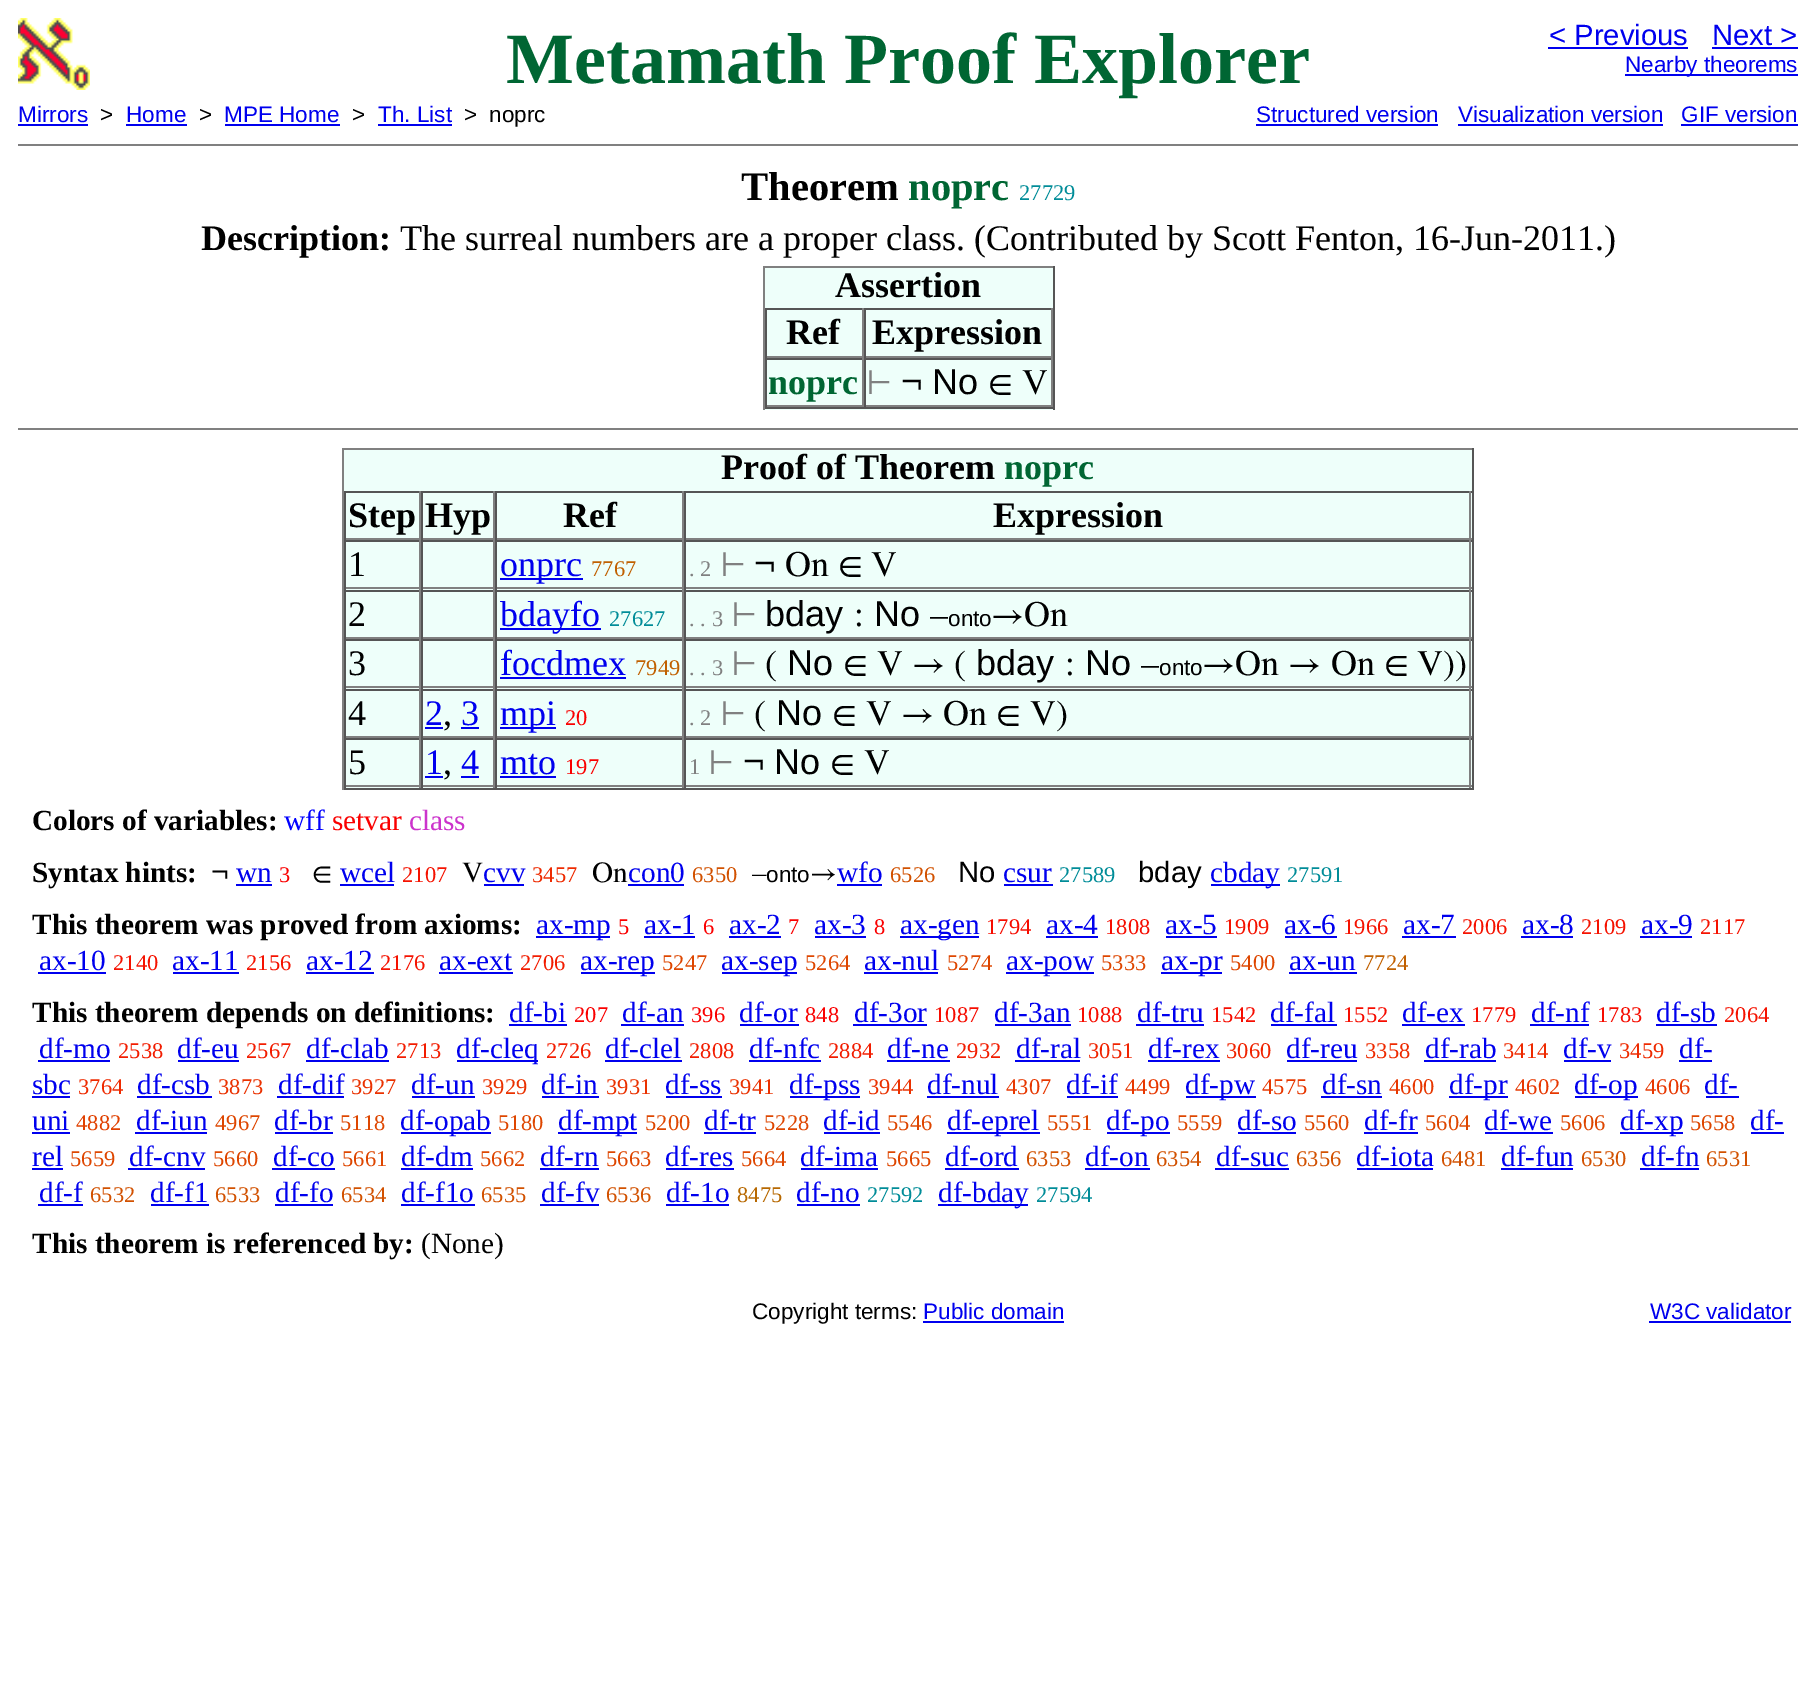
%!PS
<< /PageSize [1814 1696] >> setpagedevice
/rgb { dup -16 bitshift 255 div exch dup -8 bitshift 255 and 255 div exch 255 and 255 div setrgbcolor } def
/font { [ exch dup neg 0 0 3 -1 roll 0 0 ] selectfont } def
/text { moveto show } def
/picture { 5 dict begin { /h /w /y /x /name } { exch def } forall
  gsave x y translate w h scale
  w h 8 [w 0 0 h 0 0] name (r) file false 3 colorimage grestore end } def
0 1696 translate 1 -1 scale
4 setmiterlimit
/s1 { /LiberationSerif-Bold 72 font 16#006633 rgb } def
/s2 { /LiberationSans-Regular 29.25 font 16#0000EE rgb } def
/s3 { /LiberationSans-Regular 22.5 font 16#0000EE rgb } def
/s4 { /LiberationSans-Regular 22.5 font 16#000000 rgb } def
/s5 { /LiberationSerif-Bold 40.5 font 16#000000 rgb } def
/s6 { /LiberationSerif-Bold 40.5 font 16#006633 rgb } def
/s7 { /LiberationSerif-Regular 22.5 font 16#008C98 rgb } def
/s8 { /LiberationSerif-Bold 36 font 16#000000 rgb } def
/s9 { /LiberationSerif-Regular 36 font 16#000000 rgb } def
/s10 { /LiberationSerif-Bold 36 font 16#006633 rgb } def
/s11 { /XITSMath-Regular 36 font 16#808080 rgb } def
/s12 { /XITSMath-Regular 36 font 16#000000 rgb } def
/s13 { /LiberationSans-Regular 36 font 16#000000 rgb } def
/s14 { /LiberationSerif-Regular 36 font 16#0000EE rgb } def
/s15 { /LiberationSerif-Regular 22.5 font 16#C16000 rgb } def
/s16 { /LiberationSerif-Regular 22.5 font 16#808080 rgb } def
/s17 { /LiberationSerif-Regular 22.5 font 16#FA0000 rgb } def
/s18 { /LiberationSerif-Bold 29.25 font 16#000000 rgb } def
/s19 { /LiberationSerif-Regular 29.25 font 16#0000FF rgb } def
/s20 { /LiberationSerif-Regular 29.25 font 16#FA0000 rgb } def
/s21 { /LiberationSerif-Regular 29.25 font 16#CC33CC rgb } def
/s22 { /XITSMath-Regular 29.25 font 16#000000 rgb } def
/s23 { /LiberationSerif-Regular 29.25 font 16#0000EE rgb } def
/s24 { /LiberationSerif-Regular 22.5 font 16#F51200 rgb } def
/s25 { /LiberationSerif-Regular 22.5 font 16#EE2A00 rgb } def
/s26 { /LiberationSerif-Regular 22.5 font 16#D25100 rgb } def
/s27 { /LiberationSans-Regular 29.25 font 16#000000 rgb } def
/s28 { /LiberationSerif-Regular 22.5 font 16#F60C00 rgb } def
/s29 { /LiberationSerif-Regular 22.5 font 16#F21C00 rgb } def
/s30 { /LiberationSerif-Regular 22.5 font 16#DE4600 rgb } def
/s31 { /LiberationSerif-Regular 22.5 font 16#F02300 rgb } def
/s32 { /LiberationSerif-Regular 22.5 font 16#EA3100 rgb } def
/s33 { /LiberationSerif-Regular 22.5 font 16#E73700 rgb } def
/s34 { /LiberationSerif-Regular 22.5 font 16#E14000 rgb } def
/s35 { /LiberationSerif-Regular 22.5 font 16#B76800 rgb } def
/s36 { /LiberationSerif-Regular 29.25 font 16#000000 rgb } def
16#FFFFFF rgb
0 0 1814 1696 rectfill
(pic1.raw) 18 18 72 72 picture
s1
(Metamath Proof Explorer) 506 83 text
s2
(< Previous) 1549 45 text
1548 47 140 2 rectfill
(Next >) 1712 45 text
1712 47 86 2 rectfill
1625 74 173 2 rectfill
s3
(Nearby theorems) 1625 72 text
(Mirrors) 18 122 text
18 124 70 2 rectfill
s4
(>) 100 122 text
s3
(Home) 126 122 text
126 124 61 2 rectfill
s4
(>) 199 122 text
s3
(MPE Home) 224 122 text
225 124 115 2 rectfill
s4
(>) 352 122 text
s3
(Th. List) 378 122 text
378 124 74 2 rectfill
s4
(>) 464 122 text
(noprc) 489 122 text
s3
(Structured version) 1256 122 text
1256 124 182 2 rectfill
(Visualization version) 1458 122 text
1458 124 205 2 rectfill
(GIF version) 1681 122 text
1681 124 117 2 rectfill
16#808080 rgb
18 144 1780 2 rectfill
s5
(Theorem) 741 200 text
s6
(noprc) 908 200 text
s7
(27729) 1019 200 text
s8
(Description:) 201 250 text
s9
(The surreal numbers are a proper class. \(Contributed by Scott Fenton, 16-Jun-2011.\)) 400 250 text
16#EEFFFA rgb
765 268 288 142 rectfill
16#808080 rgb
763 266 292 2 rectfill
16#555555 rgb
1053 266 2 144 rectfill
763 407 292 2 rectfill
16#808080 rgb
763 266 2 144 rectfill
s8
(Assertion) 835 297 text
16#555555 rgb
765 308 288 2 rectfill
16#808080 rgb
862 308 2 50 rectfill
765 356 99 2 rectfill
16#555555 rgb
765 308 2 50 rectfill
s8
(Ref) 786 344 text
16#808080 rgb
1051 308 2 50 rectfill
864 356 189 2 rectfill
16#555555 rgb
864 308 2 50 rectfill
s8
(Expression) 872 344 text
16#555555 rgb
765 358 288 2 rectfill
16#808080 rgb
862 358 2 49 rectfill
765 405 99 2 rectfill
16#555555 rgb
765 358 2 49 rectfill
s10
(noprc) 768 394 text
16#808080 rgb
1051 358 2 49 rectfill
864 405 189 2 rectfill
16#555555 rgb
864 358 2 49 rectfill
s11
(⊢) 867 394 text
s12
(¬) 901 394 text
s13
(No) 932 394 text
s12
(∈ V) 988 394 text
16#808080 rgb
18 428 1780 2 rectfill
16#EEFFFA rgb
344 450 1128 338 rectfill
16#808080 rgb
342 448 1132 2 rectfill
16#555555 rgb
1472 448 2 342 rectfill
342 788 1132 2 rectfill
16#808080 rgb
342 448 2 342 rectfill
s8
(Proof of Theorem) 721 479 text
s10
(noprc) 1004 479 text
16#555555 rgb
344 491 1128 2 rectfill
16#808080 rgb
493 491 2 49 rectfill
421 538 74 2 rectfill
16#555555 rgb
421 491 2 49 rectfill
16#808080 rgb
682 491 2 49 rectfill
495 538 189 2 rectfill
16#555555 rgb
495 491 2 49 rectfill
s8
(Ref) 563 527 text
16#808080 rgb
1469 491 2 49 rectfill
684 538 788 2 rectfill
16#555555 rgb
684 491 2 49 rectfill
s8
(Expression) 993 527 text
16#808080 rgb
419 491 2 49 rectfill
344 538 77 2 rectfill
16#555555 rgb
344 491 2 49 rectfill
s8
(Step Hyp) 348 527 text
16#555555 rgb
344 540 1128 2 rectfill
16#808080 rgb
419 540 2 50 rectfill
344 587 77 2 rectfill
16#555555 rgb
344 540 2 50 rectfill
s9
(1) 348 576 text
16#808080 rgb
493 540 2 50 rectfill
421 587 74 2 rectfill
16#555555 rgb
421 540 2 50 rectfill
16#808080 rgb
682 540 2 50 rectfill
495 587 189 2 rectfill
16#555555 rgb
495 540 2 50 rectfill
16#0000EE rgb
500 578 83 2 rectfill
(onprc) 500 576 text
s15
(7767) 591 576 text
16#808080 rgb
1469 540 2 50 rectfill
684 587 788 2 rectfill
16#555555 rgb
684 540 2 50 rectfill
s16
(. 2) 689 576 text
s11
(⊢) 721 576 text
s12
(¬ On ∈ V) 754 576 text
16#555555 rgb
344 590 1128 2 rectfill
16#808080 rgb
419 590 2 49 rectfill
344 637 77 2 rectfill
16#555555 rgb
344 590 2 49 rectfill
s9
(2) 348 626 text
16#808080 rgb
493 590 2 49 rectfill
421 637 74 2 rectfill
16#555555 rgb
421 590 2 49 rectfill
16#808080 rgb
682 590 2 49 rectfill
495 637 189 2 rectfill
16#555555 rgb
495 590 2 49 rectfill
16#0000EE rgb
500 628 101 2 rectfill
(bdayfo) 500 626 text
s7
(27627) 609 626 text
16#808080 rgb
1469 590 2 49 rectfill
684 637 788 2 rectfill
16#555555 rgb
684 590 2 49 rectfill
s16
(. . 3) 689 626 text
s11
(⊢) 732 626 text
s13
(bday) 765 626 text
s12
(:) 854 626 text
s13
(No) 874 626 text
s12
(–) 930 626 text
s4
(onto) 948 626 text
s12
(→On) 991 626 text
16#555555 rgb
344 639 1128 2 rectfill
16#808080 rgb
419 639 2 50 rectfill
344 686 77 2 rectfill
16#555555 rgb
344 639 2 50 rectfill
s9
(3) 348 675 text
16#808080 rgb
493 639 2 50 rectfill
421 686 74 2 rectfill
16#555555 rgb
421 639 2 50 rectfill
16#808080 rgb
682 639 2 50 rectfill
495 686 189 2 rectfill
16#555555 rgb
495 639 2 50 rectfill
s14
(focdmex) 500 675 text
500 677 126 2 rectfill
s15
(7949) 635 675 text
16#808080 rgb
1469 639 2 50 rectfill
684 686 788 2 rectfill
16#555555 rgb
684 639 2 50 rectfill
s16
(. . 3) 689 675 text
s11
(⊢) 732 675 text
s12
(\() 765 675 text
s13
(No) 787 675 text
s12
(∈ V → \() 843 675 text
s13
(bday) 976 675 text
s12
(:) 1065 675 text
s13
(No) 1085 675 text
s12
(–) 1141 675 text
s4
(onto) 1159 675 text
s12
(→On → On ∈ V\)\)) 1202 675 text
16#555555 rgb
344 689 1128 2 rectfill
16#808080 rgb
419 689 2 49 rectfill
344 736 77 2 rectfill
16#555555 rgb
344 689 2 49 rectfill
s9
(4) 348 725 text
16#808080 rgb
493 689 2 49 rectfill
421 736 74 2 rectfill
16#555555 rgb
421 689 2 49 rectfill
s14
(2) 425 725 text
425 727 18 2 rectfill
s9
(,) 443 725 text
s14
(3) 461 725 text
461 727 18 2 rectfill
16#808080 rgb
682 689 2 49 rectfill
495 736 189 2 rectfill
16#555555 rgb
495 689 2 49 rectfill
16#0000EE rgb
500 727 56 2 rectfill
(mpi) 500 725 text
s17
(20) 565 725 text
16#808080 rgb
1469 689 2 49 rectfill
684 736 788 2 rectfill
16#555555 rgb
684 689 2 49 rectfill
s16
(. 2) 689 725 text
s11
(⊢) 721 725 text
s12
(\() 754 725 text
s13
(No) 776 725 text
s12
(∈ V → On ∈ V\)) 832 725 text
16#555555 rgb
344 738 1128 2 rectfill
16#808080 rgb
419 738 2 50 rectfill
344 785 77 2 rectfill
16#555555 rgb
344 738 2 50 rectfill
s9
(5) 348 774 text
16#808080 rgb
493 738 2 50 rectfill
421 785 74 2 rectfill
16#555555 rgb
421 738 2 50 rectfill
s14
(1) 425 774 text
425 776 18 2 rectfill
(4) 461 774 text
461 776 18 2 rectfill
s9
(,) 443 774 text
16#808080 rgb
682 738 2 50 rectfill
495 785 189 2 rectfill
16#555555 rgb
495 738 2 50 rectfill
s14
(mto) 500 774 text
500 776 56 2 rectfill
s17
(197) 565 774 text
16#808080 rgb
1469 738 2 50 rectfill
684 785 788 2 rectfill
16#555555 rgb
684 738 2 50 rectfill
s16
(1) 689 774 text
s11
(⊢) 709 774 text
s12
(¬) 743 774 text
s13
(No) 774 774 text
s12
(∈ V) 830 774 text
s18
(Colors of variables:) 32 830 text
s19
(wff) 284 830 text
s20
(setvar) 332 830 text
s21
(class) 409 830 text
s18
(Syntax hints:) 32 882 text
s22
(¬) 211 882 text
s23
(wn) 236 882 text
236 884 36 2 rectfill
s17
(3) 279 882 text
s22
(∈) 312 882 text
s23
(wcel) 340 882 text
340 884 54 2 rectfill
s24
(2107) 402 882 text
s22
(V) 462 882 text
s23
(cvv) 483 882 text
484 884 40 2 rectfill
s25
(3457) 532 882 text
s22
(On) 592 882 text
16#0000EE rgb
628 884 56 2 rectfill
s23
(con0) 628 882 text
s26
(6350) 692 882 text
s22
(–) 752 882 text
s4
(onto) 766 882 text
s22
(→) 810 882 text
16#0000EE rgb
837 884 45 2 rectfill
s23
(wfo) 837 882 text
s26
(6526) 890 882 text
s27
(No) 958 882 text
s23
(csur) 1003 882 text
1004 884 49 2 rectfill
s7
(27589) 1059 882 text
s27
(bday) 1138 882 text
16#0000EE rgb
1211 884 69 2 rectfill
s23
(cbday) 1210 882 text
s7
(27591) 1287 882 text
s18
(This theorem was proved from axioms:) 32 934 text
16#0000EE rgb
536 936 74 2 rectfill
s23
(ax-mp) 536 934 text
s17
(5) 618 934 text
s23
(ax-1) 644 934 text
644 936 51 2 rectfill
s17
(6) 703 934 text
s23
(ax-2) 729 934 text
729 936 52 2 rectfill
s17
(7) 788 934 text
s23
(ax-3) 814 934 text
815 936 51 2 rectfill
s17
(8) 874 934 text
16#0000EE rgb
900 936 79 2 rectfill
s23
(ax-gen) 900 934 text
s28
(1794) 986 934 text
s23
(ax-4) 1046 934 text
1046 936 52 2 rectfill
s28
(1808) 1105 934 text
s23
(ax-5) 1165 934 text
1166 936 51 2 rectfill
s24
(1909) 1224 934 text
s23
(ax-6) 1284 934 text
1285 936 52 2 rectfill
s24
(1966) 1343 934 text
s23
(ax-7) 1403 934 text
1402 936 54 2 rectfill
s24
(2006) 1462 934 text
s23
(ax-8) 1522 934 text
1521 936 52 2 rectfill
s24
(2109) 1581 934 text
s23
(ax-9) 1641 934 text
1640 936 52 2 rectfill
s24
(2117) 1700 934 text
s23
(ax-10) 39 970 text
38 972 68 2 rectfill
s24
(2140) 113 970 text
s23
(ax-11) 172 970 text
173 972 66 2 rectfill
s24
(2156) 246 970 text
s23
(ax-12) 306 970 text
306 972 68 2 rectfill
s24
(2176) 380 970 text
s23
(ax-ext) 439 970 text
439 972 74 2 rectfill
s29
(2706) 520 970 text
16#0000EE rgb
581 972 74 2 rectfill
s23
(ax-rep) 580 970 text
s30
(5247) 662 970 text
16#0000EE rgb
722 972 75 2 rectfill
s23
(ax-sep) 721 970 text
s30
(5264) 805 970 text
s23
(ax-nul) 864 970 text
864 972 74 2 rectfill
s30
(5274) 947 970 text
16#0000EE rgb
1006 972 88 2 rectfill
s23
(ax-pow) 1006 970 text
s30
(5333) 1101 970 text
16#0000EE rgb
1161 972 61 2 rectfill
s23
(ax-pr) 1161 970 text
s30
(5400) 1230 970 text
s23
(ax-un) 1289 970 text
1289 972 68 2 rectfill
s15
(7724) 1363 970 text
s18
(This theorem depends on definitions:) 32 1022 text
s23
(df-bi) 509 1022 text
509 1024 58 2 rectfill
s17
(207) 574 1022 text
s23
(df-an) 622 1022 text
621 1024 63 2 rectfill
s17
(396) 691 1022 text
s23
(df-or) 739 1022 text
740 1024 59 2 rectfill
s17
(848) 805 1022 text
s23
(df-3or) 854 1022 text
853 1024 74 2 rectfill
s28
(1087) 934 1022 text
s23
(df-3an) 994 1022 text
995 1024 76 2 rectfill
s28
(1088) 1077 1022 text
s23
(df-tru) 1137 1022 text
1136 1024 68 2 rectfill
s28
(1542) 1211 1022 text
s23
(df-fal) 1270 1022 text
1271 1024 66 2 rectfill
s28
(1552) 1343 1022 text
s23
(df-ex) 1402 1022 text
1402 1024 63 2 rectfill
s28
(1779) 1471 1022 text
s23
(df-nf) 1531 1022 text
1530 1024 59 2 rectfill
s28
(1783) 1597 1022 text
s23
(df-sb) 1656 1022 text
1656 1024 61 2 rectfill
s24
(2064) 1724 1022 text
s23
(df-mo) 39 1058 text
38 1060 72 2 rectfill
s29
(2538) 118 1058 text
s23
(df-eu) 177 1058 text
178 1060 61 2 rectfill
s29
(2567) 246 1058 text
s23
(df-clab) 306 1058 text
306 1060 83 2 rectfill
s29
(2713) 396 1058 text
16#0000EE rgb
457 1060 81 2 rectfill
s23
(df-cleq) 456 1058 text
s29
(2726) 546 1058 text
s23
(df-clel) 605 1058 text
605 1060 77 2 rectfill
s29
(2808) 689 1058 text
s23
(df-nfc) 749 1058 text
749 1060 72 2 rectfill
s29
(2884) 828 1058 text
s23
(df-ne) 887 1058 text
887 1060 63 2 rectfill
s29
(2932) 956 1058 text
s23
(df-ral) 1016 1058 text
1015 1060 65 2 rectfill
s31
(3051) 1088 1058 text
s23
(df-rex) 1148 1058 text
1148 1060 72 2 rectfill
s31
(3060) 1226 1058 text
s23
(df-reu) 1286 1058 text
1287 1060 70 2 rectfill
s25
(3358) 1365 1058 text
s23
(df-rab) 1425 1058 text
1424 1060 72 2 rectfill
s25
(3414) 1503 1058 text
s23
(df-v) 1563 1058 text
1564 1060 47 2 rectfill
s25
(3459) 1619 1058 text
s23
(df-) 1679 1058 text
1679 1060 33 2 rectfill
(sbc) 32 1094 text
32 1096 38 2 rectfill
s25
(3764) 78 1094 text
s23
(df-csb) 137 1094 text
137 1096 75 2 rectfill
s32
(3873) 218 1094 text
s23
(df-dif) 278 1094 text
277 1096 67 2 rectfill
s32
(3927) 351 1094 text
s23
(df-un) 411 1094 text
412 1096 63 2 rectfill
s32
(3929) 482 1094 text
s23
(df-in) 541 1094 text
542 1096 57 2 rectfill
s32
(3931) 606 1094 text
s23
(df-ss) 665 1094 text
666 1096 56 2 rectfill
s32
(3941) 729 1094 text
16#0000EE rgb
790 1096 70 2 rectfill
s23
(df-pss) 789 1094 text
s32
(3944) 868 1094 text
s23
(df-nul) 927 1094 text
927 1096 72 2 rectfill
s33
(4307) 1006 1094 text
s23
(df-if) 1066 1094 text
1067 1096 51 2 rectfill
s33
(4499) 1125 1094 text
16#0000EE rgb
1186 1096 70 2 rectfill
s23
(df-pw) 1185 1094 text
s33
(4575) 1262 1094 text
s23
(df-sn) 1322 1094 text
1321 1096 61 2 rectfill
s33
(4600) 1389 1094 text
16#0000EE rgb
1449 1096 59 2 rectfill
s23
(df-pr) 1449 1094 text
s33
(4602) 1515 1094 text
16#0000EE rgb
1575 1096 63 2 rectfill
s23
(df-op) 1574 1094 text
s33
(4606) 1645 1094 text
s23
(df-) 1704 1094 text
1706 1096 33 2 rectfill
(uni) 32 1130 text
32 1132 38 2 rectfill
s34
(4882) 76 1130 text
s23
(df-iun) 136 1130 text
135 1132 72 2 rectfill
s30
(4967) 215 1130 text
s23
(df-br) 274 1130 text
275 1132 58 2 rectfill
s30
(5118) 340 1130 text
16#0000EE rgb
401 1132 90 2 rectfill
s23
(df-opab) 400 1130 text
s30
(5180) 498 1130 text
16#0000EE rgb
558 1132 79 2 rectfill
s23
(df-mpt) 558 1130 text
s30
(5200) 645 1130 text
s23
(df-tr) 704 1130 text
704 1132 52 2 rectfill
s30
(5228) 764 1130 text
s23
(df-id) 823 1130 text
824 1132 56 2 rectfill
s30
(5546) 887 1130 text
16#0000EE rgb
947 1132 93 2 rectfill
s23
(df-eprel) 947 1130 text
s30
(5551) 1047 1130 text
16#0000EE rgb
1107 1132 63 2 rectfill
s23
(df-po) 1106 1130 text
s30
(5559) 1177 1130 text
s23
(df-so) 1237 1130 text
1238 1132 58 2 rectfill
s30
(5560) 1304 1130 text
s23
(df-fr) 1364 1130 text
1364 1132 54 2 rectfill
s30
(5604) 1425 1130 text
s23
(df-we) 1484 1130 text
1485 1132 68 2 rectfill
s30
(5606) 1560 1130 text
16#0000EE rgb
1620 1132 63 2 rectfill
s23
(df-xp) 1620 1130 text
s30
(5658) 1690 1130 text
s23
(df-) 1750 1130 text
1751 1132 33 2 rectfill
(rel) 32 1166 text
32 1168 31 2 rectfill
s30
(5659) 70 1166 text
s23
(df-cnv) 129 1166 text
128 1168 77 2 rectfill
s30
(5660) 213 1166 text
s23
(df-co) 273 1166 text
272 1168 63 2 rectfill
s30
(5661) 342 1166 text
s23
(df-dm) 401 1166 text
401 1168 72 2 rectfill
s30
(5662) 480 1166 text
s23
(df-rn) 540 1166 text
540 1168 59 2 rectfill
s30
(5663) 606 1166 text
s23
(df-res) 665 1166 text
666 1168 68 2 rectfill
s30
(5664) 741 1166 text
s23
(df-ima) 800 1166 text
801 1168 77 2 rectfill
s30
(5665) 886 1166 text
s23
(df-ord) 945 1166 text
945 1168 74 2 rectfill
s26
(6353) 1026 1166 text
s23
(df-on) 1085 1166 text
1085 1168 65 2 rectfill
s26
(6354) 1156 1166 text
s23
(df-suc) 1216 1166 text
1215 1168 74 2 rectfill
s26
(6356) 1296 1166 text
s23
(df-iota) 1356 1166 text
1357 1168 76 2 rectfill
s26
(6481) 1441 1166 text
s23
(df-fun) 1501 1166 text
1501 1168 72 2 rectfill
s26
(6530) 1581 1166 text
s23
(df-fn) 1641 1166 text
1640 1168 59 2 rectfill
s26
(6531) 1706 1166 text
s23
(df-f) 39 1202 text
38 1204 45 2 rectfill
s26
(6532) 90 1202 text
s23
(df-f1) 150 1202 text
151 1204 58 2 rectfill
s26
(6533) 215 1202 text
s23
(df-fo) 275 1202 text
275 1204 58 2 rectfill
s26
(6534) 341 1202 text
s23
(df-f1o) 401 1202 text
401 1204 74 2 rectfill
s26
(6535) 481 1202 text
s23
(df-fv) 541 1202 text
540 1204 59 2 rectfill
s26
(6536) 606 1202 text
s23
(df-1o) 666 1202 text
666 1204 63 2 rectfill
s35
(8475) 737 1202 text
s23
(df-no) 796 1202 text
797 1204 63 2 rectfill
s7
(27592) 867 1202 text
16#0000EE rgb
938 1204 90 2 rectfill
s23
(df-bday) 938 1202 text
s7
(27594) 1036 1202 text
s18
(This theorem is referenced by:) 32 1253 text
s36
(\(None\)) 421 1253 text
s4
(Copyright terms:) 752 1319 text
s3
(Public domain) 923 1319 text
923 1321 141 2 rectfill
(W3C validator) 1650 1319 text
1649 1321 142 2 rectfill
showpage
